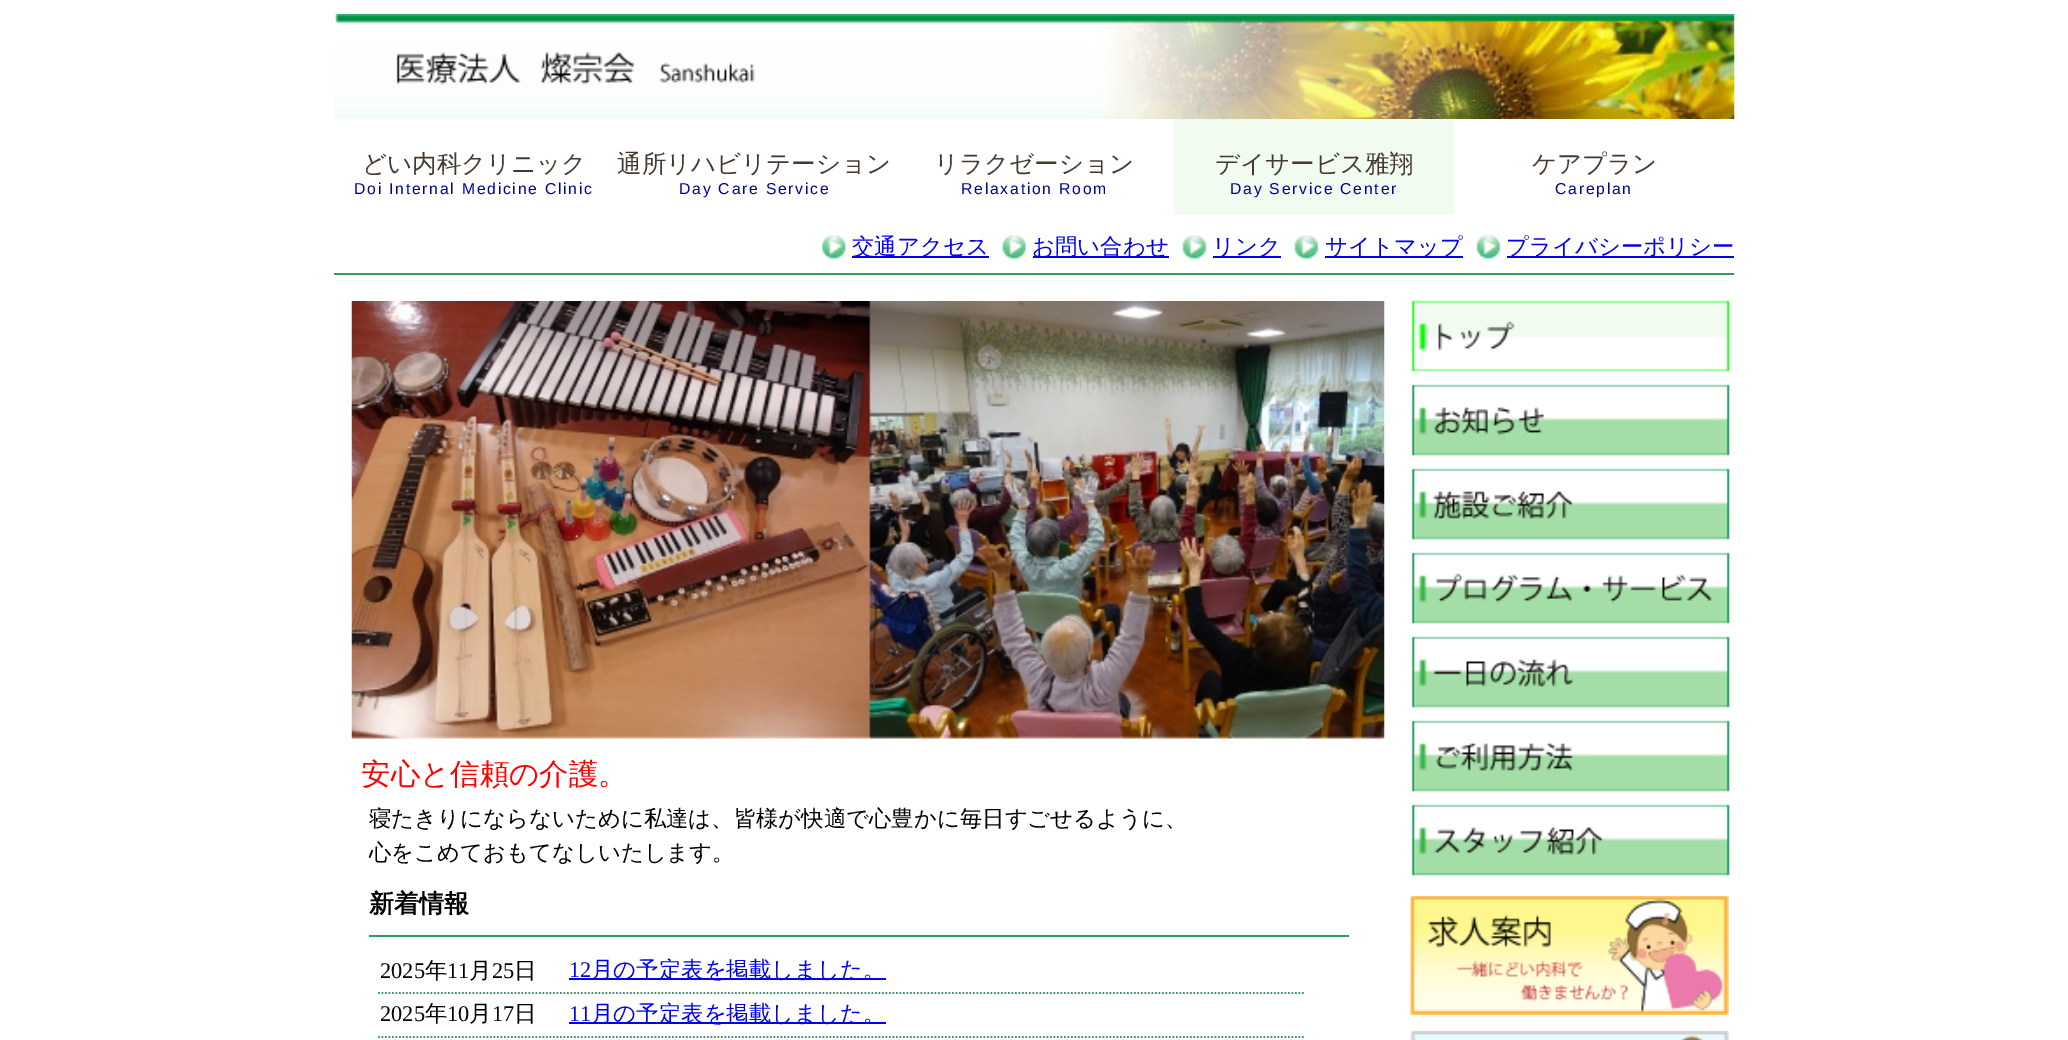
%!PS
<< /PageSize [2068 1040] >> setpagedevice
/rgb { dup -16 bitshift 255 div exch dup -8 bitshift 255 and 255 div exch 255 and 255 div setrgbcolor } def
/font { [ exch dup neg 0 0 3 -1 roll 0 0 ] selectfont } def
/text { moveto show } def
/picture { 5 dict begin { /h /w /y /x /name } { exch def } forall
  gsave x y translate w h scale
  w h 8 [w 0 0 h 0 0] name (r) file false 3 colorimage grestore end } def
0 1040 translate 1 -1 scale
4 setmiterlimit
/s1 { /WenQuanYiZenHei-Medium 24.5 font 16#453931 rgb } def
/s2 { /WenQuanYiZenHei-Medium 22.4 font 16#0000EE rgb } def
/s3 { /WenQuanYiZenHei-Medium 29.5 font 16#FF0000 rgb } def
/s4 { /WenQuanYiZenHei-Medium 22.4 font 16#000000 rgb } def
/s5 { /WenQuanYiZenHei-Bold 25 font 16#000000 rgb } def
/s6 { /LiberationSerif-Regular 22.4 font 16#000000 rgb } def
/s7 { /LiberationSerif-Regular 22.4 font 16#0000EE rgb } def
16#FFFFFF rgb
0 0 2068 1040 rectfill
(pic1.raw) 334 14 1401 105 picture
s1
(どい内科クリニック) 362 172 text
/LiberationSans-Regular 15.75 font
16#000099 rgb
354 194 moveto 1.75 0 (Doi Internal Medicine Clinic) ashow
s1
(通所リハビリテーション) 617 172 text
/LiberationSans-Regular 15.75 font
16#000099 rgb
679 194 moveto 1.75 0 (Day Care Service) ashow
s1
(リラクゼーション) 934 172 text
/LiberationSans-Regular 15.75 font
16#000099 rgb
961 194 moveto 1.75 0 (Relaxation Room) ashow
16#F1FBF0 rgb
1174 119 280 96 rectfill
s1
(デイサービス雅翔) 1215 172 text
/LiberationSans-Regular 15.75 font
16#000099 rgb
1230 194 moveto 1.75 0 (Day Service Center) ashow
s1
(ケアプラン) 1532 172 text
/LiberationSans-Regular 15.75 font
16#000099 rgb
1555 194 moveto 1.75 0 (Careplan) ashow
(pic2.raw) 822 235 24 24 picture
16#0000EE rgb
852 256 137 2 rectfill
s2
(交通アクセス) 852 254 text
(pic3.raw) 1002 235 24 24 picture
1033 256 136 2 rectfill
(お問い合わせ) 1032 254 text
(pic4.raw) 1182 235 25 24 picture
1213 256 68 2 rectfill
(リンク) 1212 254 text
(pic5.raw) 1294 235 25 24 picture
1325 256 138 2 rectfill
(サイトマップ) 1325 254 text
(pic4.raw) 1476 235 25 24 picture
1507 256 227 2 rectfill
(プライバシーポリシー) 1506 254 text
16#339966 rgb
334 273 1400 2 rectfill
(pic6.raw) 351 301 1034 438 picture
s3
(安心と信頼の介護。) 361 784 text
s4
(寝たきりにならないために私達は、皆様が快適で心豊かに毎日すごせるように、) 369 826 text
(心をこめておもてなしいたします。) 369 860 text
s5
(新着情報) 369 912 text
16#339966 rgb
369 935 980 2 rectfill
1.8 setlinewidth
[1.75 1.75] 0 setdash
378 993 moveto 567 993 lineto stroke
s6
(2025) 380 978 text
s4
(年) 425 978 text
s6
(11) 447 978 text
s4
(月) 469 978 text
s6
(25) 492 978 text
s4
(日) 514 978 text
16#339966 rgb
567 993 moveto 1305.5 993 lineto stroke
s7
(12) 569 977 text
569 978 317 2 rectfill
s2
(月の予定表を掲載しました。) 591 977 text
16#339966 rgb
378 1037 moveto 567 1037 lineto stroke
s6
(2025) 380 1021 text
s4
(年) 425 1021 text
s6
(10) 447 1021 text
s4
(月) 469 1021 text
s6
(17) 492 1021 text
s4
(日) 514 1021 text
16#339966 rgb
567 1037 moveto 1305.5 1037 lineto stroke
s7
(11) 569 1021 text
569 1022 317 2 rectfill
s2
(月の予定表を掲載しました。) 591 1021 text
(pic7.raw) 1411 300 319 72 picture
(pic8.raw) 1411 384 319 72 picture
(pic9.raw) 1411 468 319 72 picture
(pic10.raw) 1411 552 319 72 picture
(pic11.raw) 1411 636 319 72 picture
(pic12.raw) 1411 720 319 72 picture
(pic13.raw) 1411 804 319 72 picture
(pic14.raw) 1410 896 319 119 picture
(pic15.raw) 1410 1030 319 10 picture
showpage
